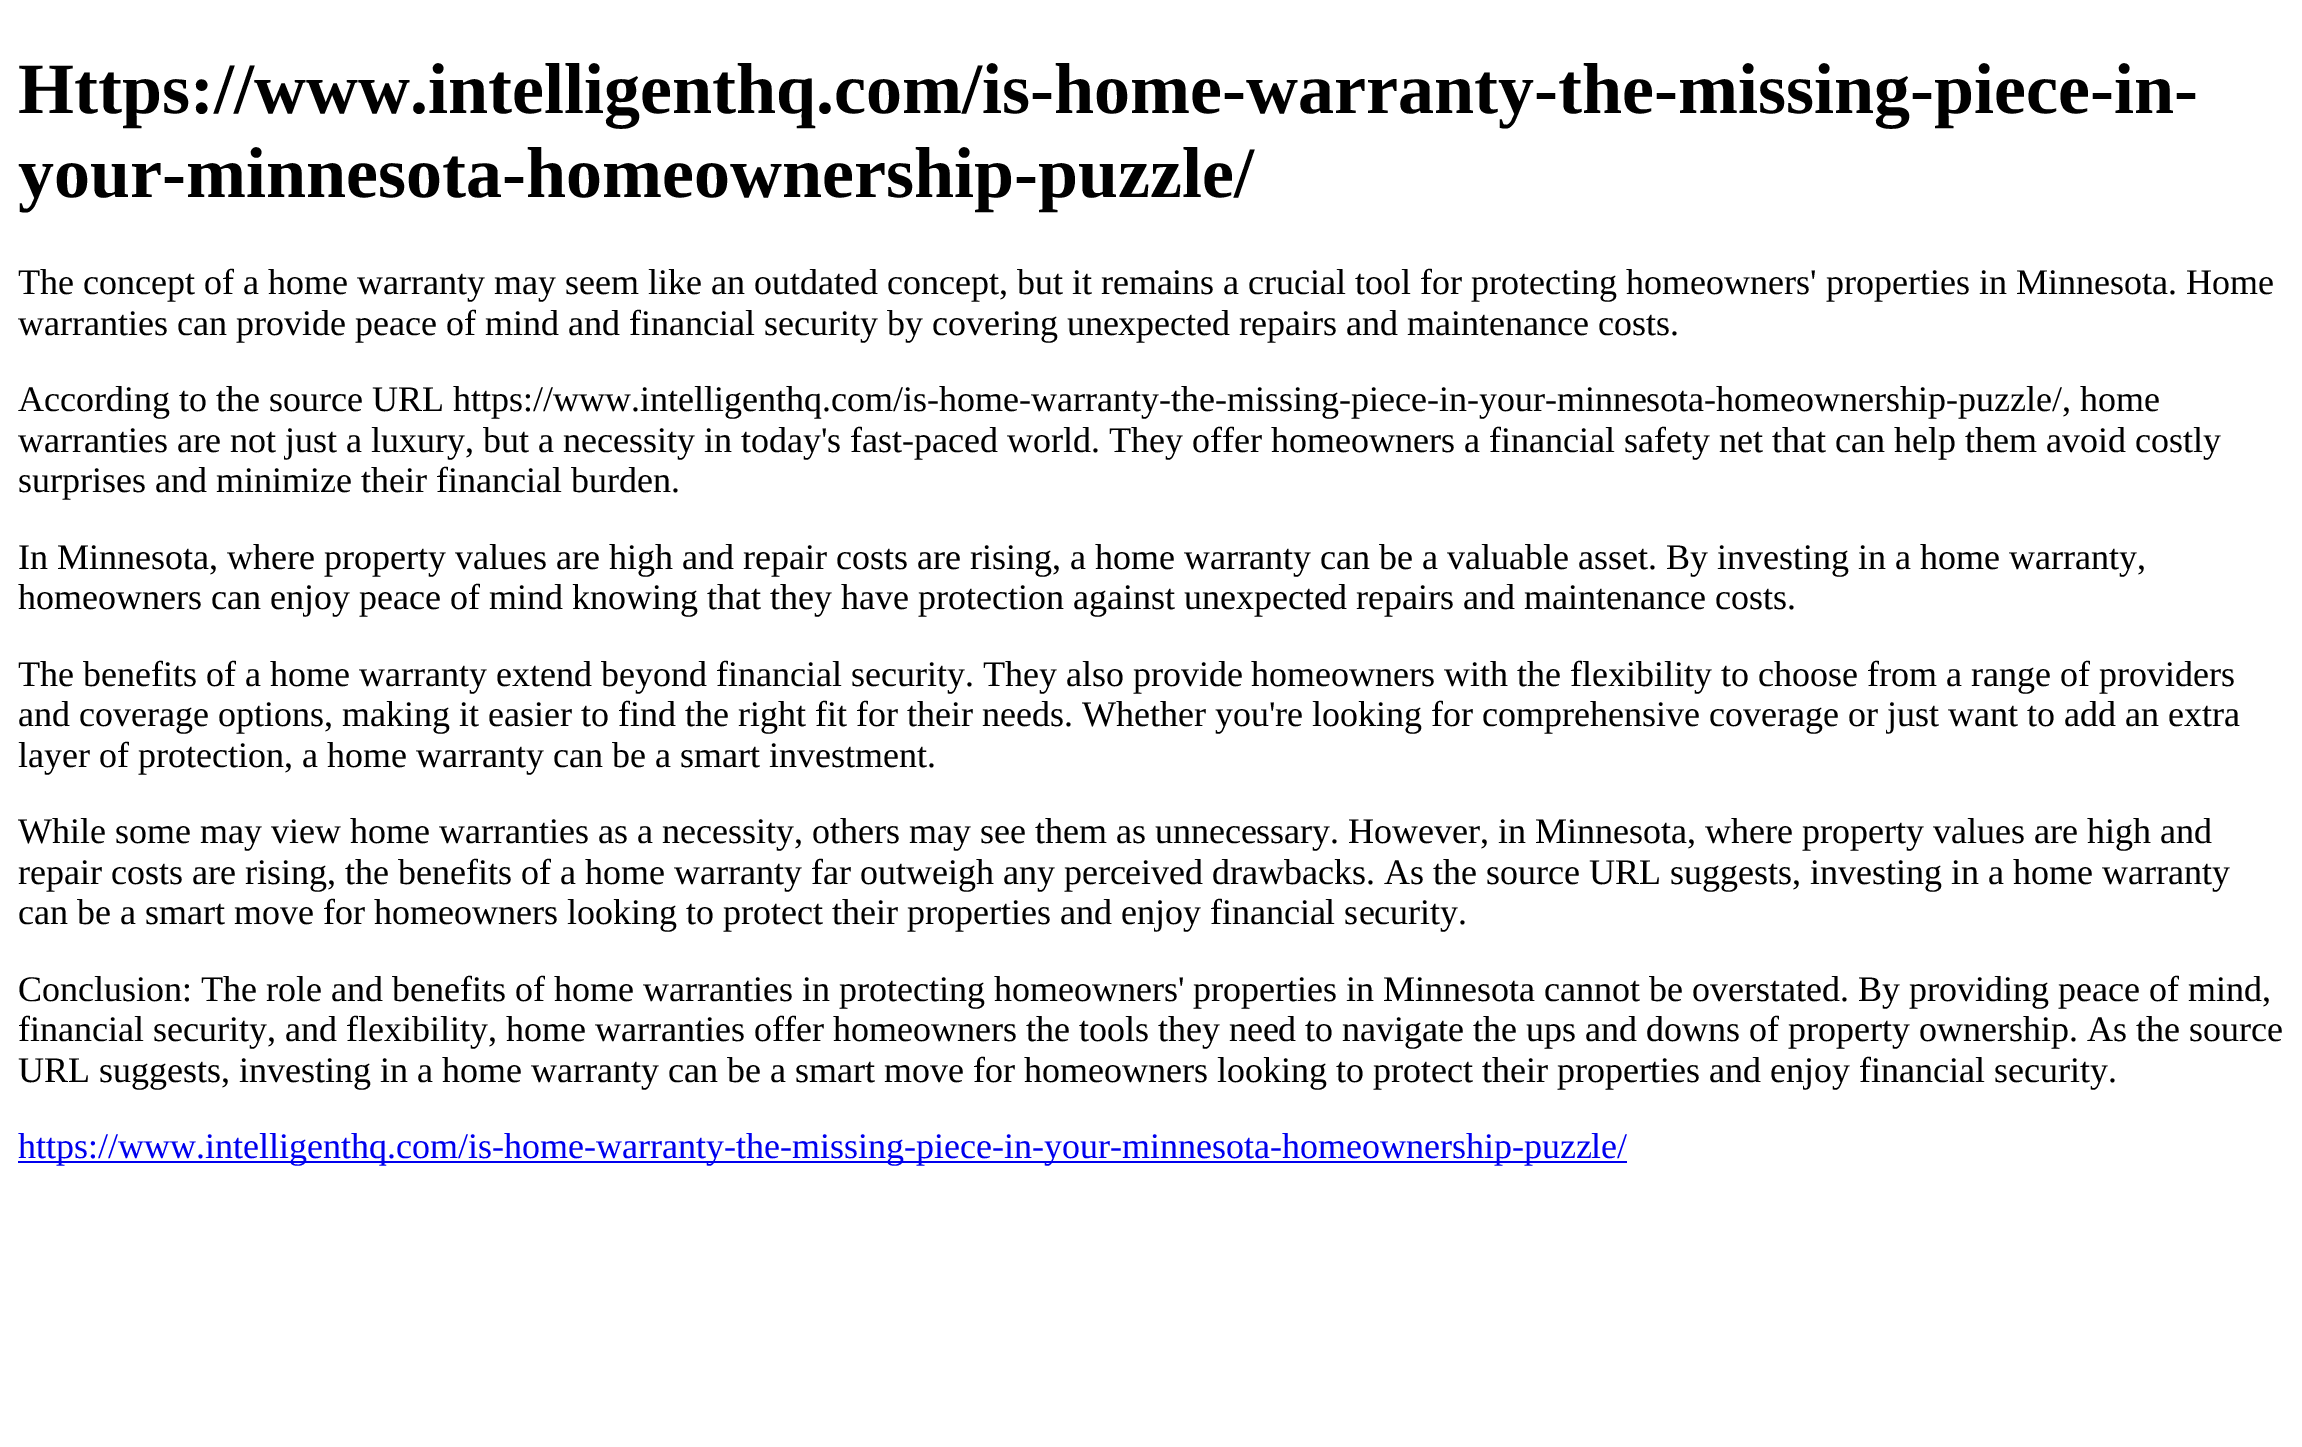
%!PS
<< /PageSize [2302 1447] >> setpagedevice
/rgb { dup -16 bitshift 255 div exch dup -8 bitshift 255 and 255 div exch 255 and 255 div setrgbcolor } def
/font { [ exch dup neg 0 0 3 -1 roll 0 0 ] selectfont } def
/text { moveto show } def
0 1447 translate 1 -1 scale
4 setmiterlimit
/s1 { /LiberationSerif-Bold 72 font 16#000000 rgb } def
/s2 { /LiberationSerif-Regular 36 font 16#000000 rgb } def
/s3 { /LiberationSerif-Regular 36 font 16#0000EE rgb } def
16#FFFFFF rgb
0 0 2302 1447 rectfill
s1
(Https://www.intelligenthq.com/is-home-warranty-the-missing-piece-in-) 18 113 text
(your-minnesota-homeownership-puzzle/) 18 197 text
s2
(The concept of a home warranty may seem like an outdated concept, but it remains a crucial tool for protecting homeowners' properties in Minnesota. Home) 18 294 text
(warranties can provide peace of mind and financial security by covering unexpected repairs and maintenance costs.) 18 335 text
(According to the source URL https://www.intelligenthq.com/is-home-warranty-the-missing-piece-in-your-minnesota-homeownership-puzzle/, home) 18 411 text
(warranties are not just a luxury, but a necessity in today's fast-paced world. They offer homeowners a financial safety net that can help them avoid costly) 18 452 text
(surprises and minimize their financial burden.) 18 492 text
(In Minnesota, where property values are high and repair costs are rising, a home warranty can be a valuable asset. By investing in a home warranty,) 18 569 text
(homeowners can enjoy peace of mind knowing that they have protection against unexpected repairs and maintenance costs.) 18 609 text
(The benefits of a home warranty extend beyond financial security. They also provide homeowners with the flexibility to choose from a range of providers) 18 686 text
(and coverage options, making it easier to find the right fit for their needs. Whether you're looking for comprehensive coverage or just want to add an extra) 18 726 text
(layer of protection, a home warranty can be a smart investment.) 18 767 text
(While some may view home warranties as a necessity, others may see them as unnecessary. However, in Minnesota, where property values are high and) 18 843 text
(repair costs are rising, the benefits of a home warranty far outweigh any perceived drawbacks. As the source URL suggests, investing in a home warranty) 18 884 text
(can be a smart move for homeowners looking to protect their properties and enjoy financial security.) 18 924 text
(Conclusion: The role and benefits of home warranties in protecting homeowners' properties in Minnesota cannot be overstated. By providing peace of mind,) 18 1001 text
(financial security, and flexibility, home warranties offer homeowners the tools they need to navigate the ups and downs of property ownership. As the source) 18 1041 text
(URL suggests, investing in a home warranty can be a smart move for homeowners looking to protect their properties and enjoy financial security.) 18 1082 text
16#0000EE rgb
18 1161 1609 2 rectfill
(https://www.intelligenthq.com/is-home-warranty-the-missing-piece-in-your-minnesota-homeownership-puzzle/) 18 1158 text
showpage
